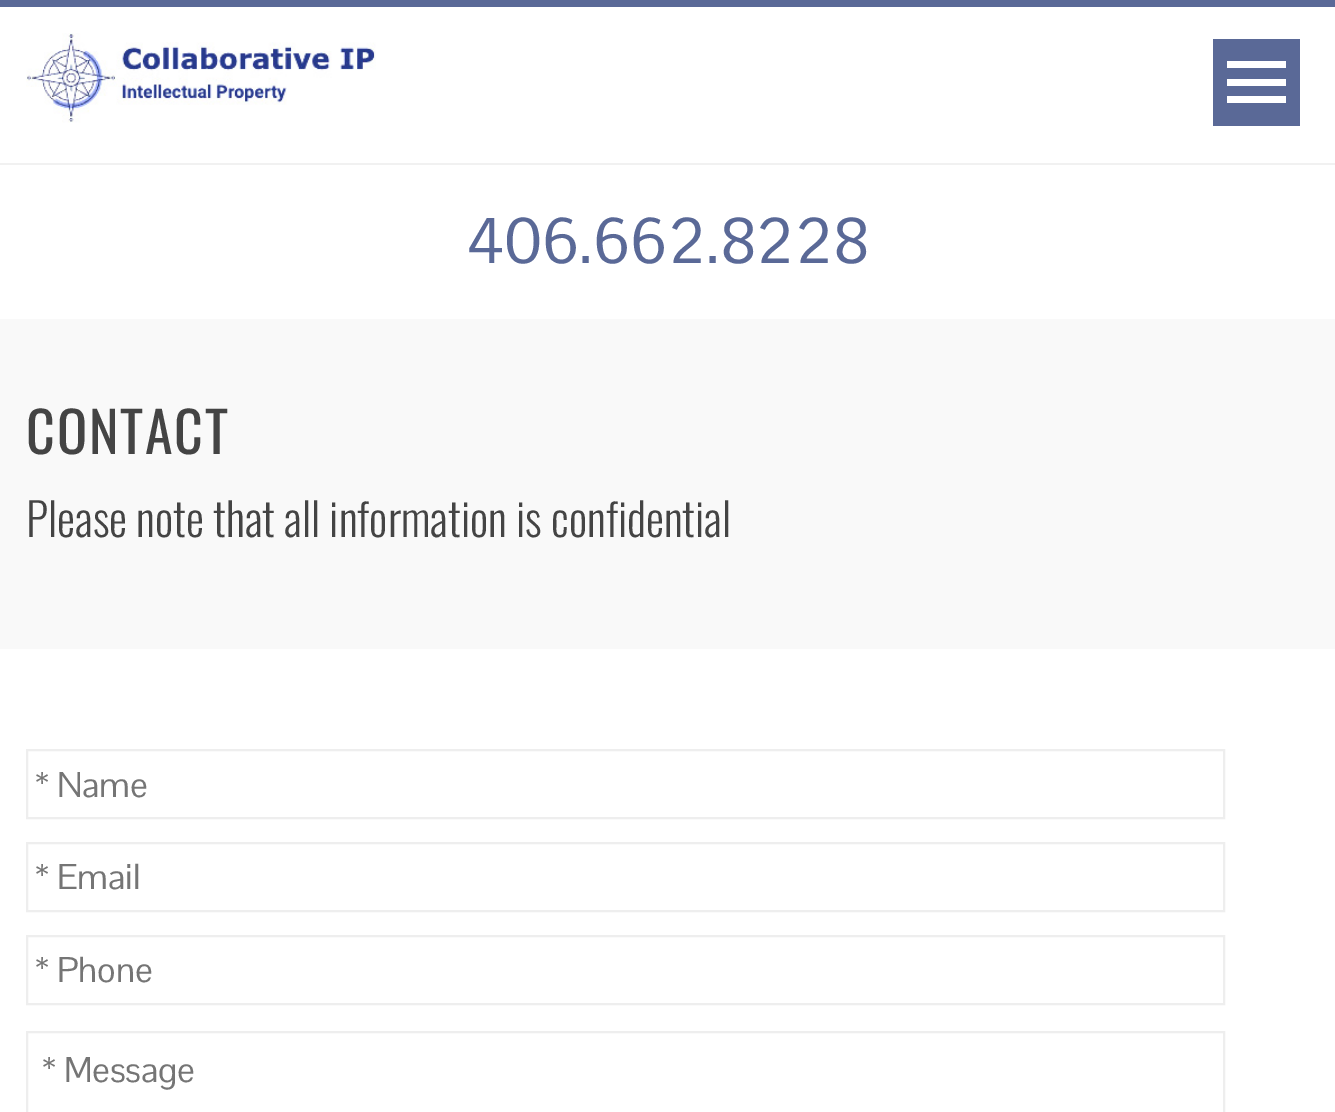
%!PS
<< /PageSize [1335 1112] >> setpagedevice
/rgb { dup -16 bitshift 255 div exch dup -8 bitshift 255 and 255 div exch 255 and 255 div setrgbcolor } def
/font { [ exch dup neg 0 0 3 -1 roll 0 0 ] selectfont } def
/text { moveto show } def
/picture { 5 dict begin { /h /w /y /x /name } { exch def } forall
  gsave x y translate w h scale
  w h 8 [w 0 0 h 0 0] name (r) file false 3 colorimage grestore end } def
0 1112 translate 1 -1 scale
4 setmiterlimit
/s1 { /PontanoSans-Regular 63 font 16#5A6997 rgb } def
/s2 { /Oswald-Light 45.5 font 16#444444 rgb } def
/s3 { /PontanoSans-Regular 35 font 16#757575 rgb } def
16#FFFFFF rgb
0 0 1335 1112 rectfill
16#5A6997 rgb
0 0 1335 7 rectfill
16#F1F1F1 rgb
0 163 1335 2 rectfill
(pic1.raw) 26 33 350 90 picture
16#5A6997 rgb
1213 39 87 87 rectfill
16#FFFFFF rgb
1227 61 59 7 rectfill
1227 96 59 7 rectfill
1227 79 59 7 rectfill
s1
(406.662.8228) 466 263 text
16#F9F9F9 rgb
0 319 1335 330 rectfill
/Oswald-Regular 56 font
16#444444 rgb
26 454 moveto 1.75 0 (CONTACT) ashow
s2
(Please note that all information is confidential) 26 537 text
16#EEEEEE rgb
2 setlinewidth
27 750 1197 68 rectstroke
s3
(* Name) 35 797 text
16#EEEEEE rgb
27 843 1197 68 rectstroke
s3
(* Email) 35 889 text
16#EEEEEE rgb
27 936 1197 68 rectstroke
s3
(* Phone) 35 982 text
16#EEEEEE rgb
27 1032 1197 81 rectstroke
s3
(* Message) 42 1082 text
showpage
